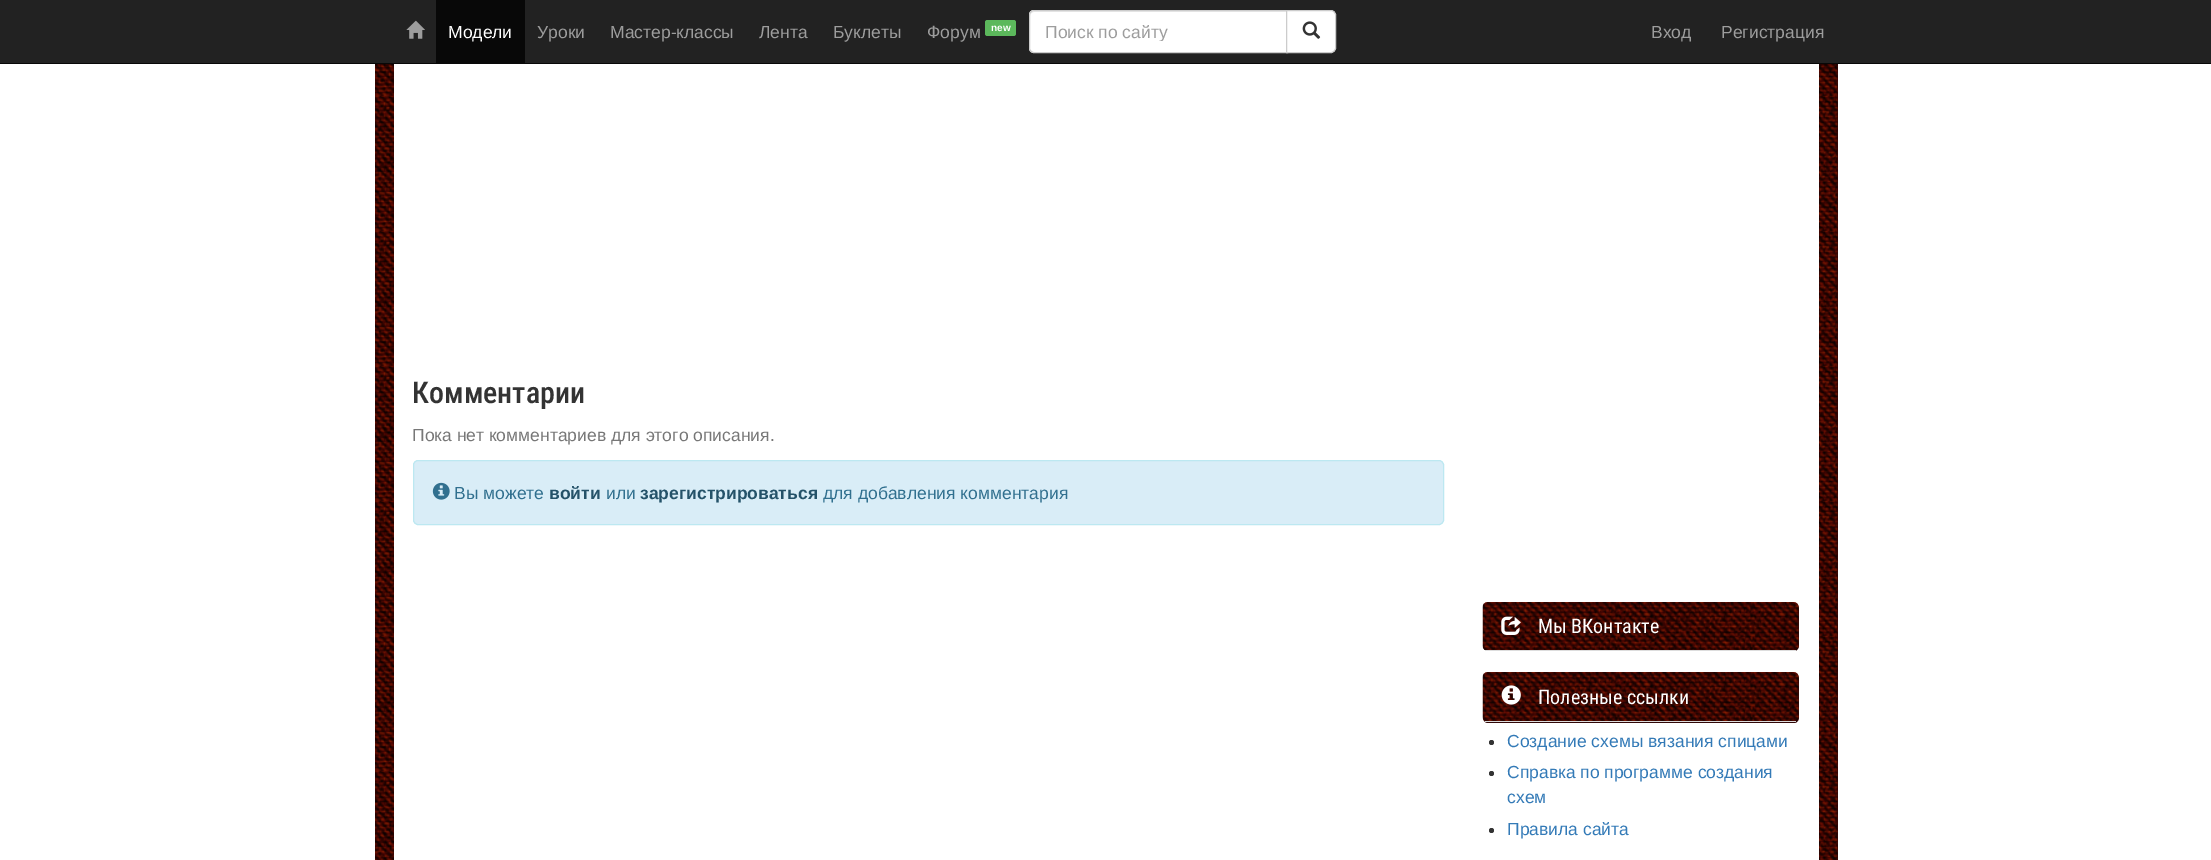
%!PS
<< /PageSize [2211 860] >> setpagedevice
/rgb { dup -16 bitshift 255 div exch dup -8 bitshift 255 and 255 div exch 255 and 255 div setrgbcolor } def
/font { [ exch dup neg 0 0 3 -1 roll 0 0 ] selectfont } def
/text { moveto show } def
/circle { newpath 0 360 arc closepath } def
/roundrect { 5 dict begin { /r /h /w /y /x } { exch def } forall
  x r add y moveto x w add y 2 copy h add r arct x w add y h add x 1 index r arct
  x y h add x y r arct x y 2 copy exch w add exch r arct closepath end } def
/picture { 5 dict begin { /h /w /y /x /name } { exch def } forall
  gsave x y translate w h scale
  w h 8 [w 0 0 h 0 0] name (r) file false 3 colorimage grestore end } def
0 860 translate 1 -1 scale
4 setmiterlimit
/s1 { /LiberationSans-Regular 17.5 font 16#FFFFFF rgb } def
/s2 { /LiberationSans-Regular 17.5 font 16#9D9D9D rgb } def
/s3 { /LiberationSans-Bold 10 font 16#FFFFFF rgb } def
/s4 { /RobotoCondensed-Medium 30 font 16#333333 rgb } def
/s5 { /LiberationSans-Regular 17.5 font 16#777777 rgb } def
/s6 { /LiberationSans-Regular 17.5 font 16#31708F rgb } def
/s7 { /LiberationSans-Bold 17.5 font 16#245269 rgb } def
/s8 { /RobotoCondensed-Regular 20 font 16#FFFFFF rgb } def
/s9 { /LiberationSans-Regular 17.5 font 16#337AB7 rgb } def
16#FFFFFF rgb
0 0 2211 860 rectfill
16#222222 rgb
0 0 2211 63 rectfill
16#080808 rgb
0 63 2211 1 rectfill
(pic1.raw) 406 20 19 19 picture
436 0 89 63 rectfill
s1
(Модели) 448 38 text
s2
(Уроки) 537 38 text
(Мастер-классы) 610 38 text
(Лента) 759 38 text
(Буклеты) 833 38 text
(Форум) 927 38 text
16#5CB85C rgb
985 20 31 16 2.5 roundrect fill
s3
(new) 991 31 text
1034 10 moveto 1288 10 lineto 1288 53 lineto 1034 53 lineto 1031 53 1029 51 1029 48 curveto 1029 15 lineto 1029 12 1031 10 1034 10 curveto closepath fill
16#ECECEC rgb
1034 12 moveto 1286 12 lineto 1286 11 lineto 1034 11 lineto 1032 11 1030 13 1030 15 curveto 1030 16 lineto 1030 14 1032 12 1034 12 curveto closepath fill
16#CCCCCC rgb
1034 10.5 moveto 1287.5 10.5 lineto 1287.5 52.5 lineto 1034 52.5 lineto 1031.5 52.5 1029.5 50.5 1029.5 48 curveto 1029.5 15 lineto 1029.5 12.5 1031.5 10.5 1034 10.5 curveto closepath stroke
gsave
1045 21 226 20 rectclip
s2
(Поиск по сайту) 1045 38 text
grestore
16#FFFFFF rgb
1286.5 10.5 moveto 1331 10.5 lineto 1333.5 10.5 1335.5 12.5 1335.5 15 curveto 1335.5 48 lineto 1335.5 50.5 1333.5 52.5 1331 52.5 curveto 1286.5 52.5 lineto closepath gsave fill grestore
16#CCCCCC rgb
stroke
(pic2.raw) 1302 21 19 18 picture
s2
(Вход) 1651 38 text
(Регистрация) 1721 38 text
16#300707 rgb
1837 64 1 796 rectfill
(pic3.raw) 375 64 1463 796 picture
16#FFFFFF rgb
394 64 1425 796 rectfill
s4
(Комментарии) 412 403 text
s5
(Пока нет комментариев для этого описания.) 412 441 text
16#D9EDF7 rgb
413.5 460.5 1030 64 4.5 roundrect gsave fill grestore
16#BCE8F1 rgb
stroke
(pic4.raw) 432 482 18 18 picture
s6
(Вы можете) 454 499 text
s7
(войти) 549 499 text
s6
(или) 606 499 text
s7
(зарегистрироваться) 640 499 text
s6
(для добавления комментария) 823 499 text
16#300707 rgb
1483 603 316 48 5 roundrect fill
(pic5.raw) 1482 602 317 48 picture
16#DDDDDD rgb
1485 650 311 1 rectfill
(pic6.raw) 1501 616 20 19 picture
s8
(Мы ВКонтакте) 1538 633 text
16#300707 rgb
1483 673 316 50 5 roundrect fill
(pic7.raw) 1482 672 317 50 picture
16#DDDDDD rgb
1485 721 311 1 rectfill
(pic8.raw) 1501 685 20 20 picture
s8
(Полезные ссылки) 1538 704 text
16#333333 rgb
1491.5 742.5 2.5 circle fill
s9
(Создание схемы вязания спицами) 1507 747 text
16#333333 rgb
1491.5 773.5 2.5 circle fill
s9
(Справка по программе создания) 1507 778 text
(схем) 1507 803 text
16#333333 rgb
1491.5 830.5 2.5 circle fill
s9
(Правила сайта) 1507 835 text
showpage
